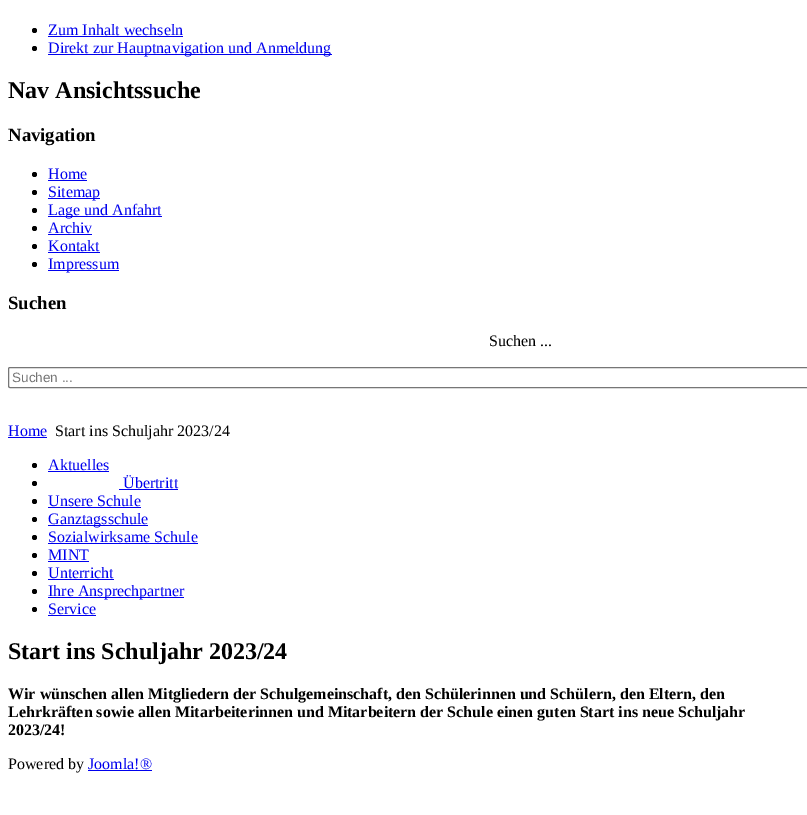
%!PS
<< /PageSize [807 815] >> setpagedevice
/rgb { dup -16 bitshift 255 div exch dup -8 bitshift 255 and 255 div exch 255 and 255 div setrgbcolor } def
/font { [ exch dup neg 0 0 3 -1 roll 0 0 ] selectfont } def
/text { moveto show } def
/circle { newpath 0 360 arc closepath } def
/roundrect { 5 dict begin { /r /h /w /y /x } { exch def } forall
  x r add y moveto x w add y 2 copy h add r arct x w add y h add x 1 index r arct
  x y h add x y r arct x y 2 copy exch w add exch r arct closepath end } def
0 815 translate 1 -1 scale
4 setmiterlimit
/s1 { /LiberationSerif-Regular 16 font 16#0000EE rgb } def
/s2 { /LiberationSerif-Bold 24 font 16#000000 rgb } def
/s3 { /LiberationSerif-Bold 18.75 font 16#000000 rgb } def
/s4 { /LiberationSerif-Regular 16 font 16#000000 rgb } def
/s5 { /LiberationSans-Regular 13.5 font 16#757575 rgb } def
/s6 { /LiberationSerif-Bold 16 font 16#000000 rgb } def
16#FFFFFF rgb
0 0 807 815 rectfill
16#000000 rgb
34.5 30.5 2.5 circle fill
s1
(Zum Inhalt wechseln) 48 35 text
48 36 135 1 rectfill
16#000000 rgb
34.5 48.5 2.5 circle fill
16#0000EE rgb
48 54 284 1 rectfill
(Direkt zur Hauptnavigation und Anmeldung) 48 53 text
s2
(Nav Ansichtssuche) 8 98 text
s3
(Navigation) 8 141 text
34.5 174.5 2.5 circle fill
s1
(Home) 48 179 text
48 180 39 1 rectfill
16#000000 rgb
34.5 192.5 2.5 circle fill
16#0000EE rgb
48 198 52 1 rectfill
(Sitemap) 48 197 text
16#000000 rgb
34.5 210.5 2.5 circle fill
16#0000EE rgb
48 216 114 1 rectfill
(Lage und Anfahrt) 48 215 text
16#000000 rgb
34.5 228.5 2.5 circle fill
s1
(Archiv) 48 233 text
48 234 44 1 rectfill
16#000000 rgb
34.5 246.5 2.5 circle fill
s1
(Kontakt) 48 251 text
48 252 52 1 rectfill
16#000000 rgb
34.5 264.5 2.5 circle fill
16#0000EE rgb
48 270 71 1 rectfill
(Impressum) 48 269 text
s3
(Suchen) 8 309 text
s4
(Suchen ...) 489 346 text
16#767676 rgb
8.5 367.5 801 20 1.5 roundrect stroke
s5
(Suchen ...) 12 382 text
s1
(Home) 8 436 text
8 437 39 1 rectfill
s4
(Start ins Schuljahr 2023/24) 55 436 text
34.5 465.5 2.5 circle fill
s1
(Aktuelles) 48 470 text
48 471 61 1 rectfill
16#000000 rgb
34.5 483.5 2.5 circle fill
s1
(Übertritt) 123 488 text
119 489 59 1 rectfill
16#000000 rgb
34.5 501.5 2.5 circle fill
s1
(Unsere Schule) 48 506 text
48 507 93 1 rectfill
16#000000 rgb
34.5 519.5 2.5 circle fill
16#0000EE rgb
48 525 100 1 rectfill
(Ganztagsschule) 48 524 text
16#000000 rgb
34.5 537.5 2.5 circle fill
s1
(Sozialwirksame Schule) 48 542 text
48 543 150 1 rectfill
16#000000 rgb
34.5 555.5 2.5 circle fill
s1
(MINT) 48 560 text
48 561 41 1 rectfill
16#000000 rgb
34.5 573.5 2.5 circle fill
s1
(Unterricht) 48 578 text
48 579 66 1 rectfill
16#000000 rgb
34.5 591.5 2.5 circle fill
16#0000EE rgb
48 597 136 1 rectfill
(Ihre Ansprechpartner) 48 596 text
16#000000 rgb
34.5 609.5 2.5 circle fill
s1
(Service) 48 614 text
48 615 48 1 rectfill
s2
(Start ins Schuljahr 2023/24) 8 659 text
s6
(Wir wünschen allen Mitgliedern der Schulgemeinschaft, den Schülerinnen und Schülern, den Eltern, den) 8 699 text
(Lehrkräften sowie allen Mitarbeiterinnen und Mitarbeitern der Schule einen guten Start ins neue Schuljahr) 8 717 text
(2023/24!) 8 735 text
s4
(Powered by) 8 769 text
s1
(Joomla!®) 88 769 text
88 770 64 1 rectfill
showpage
